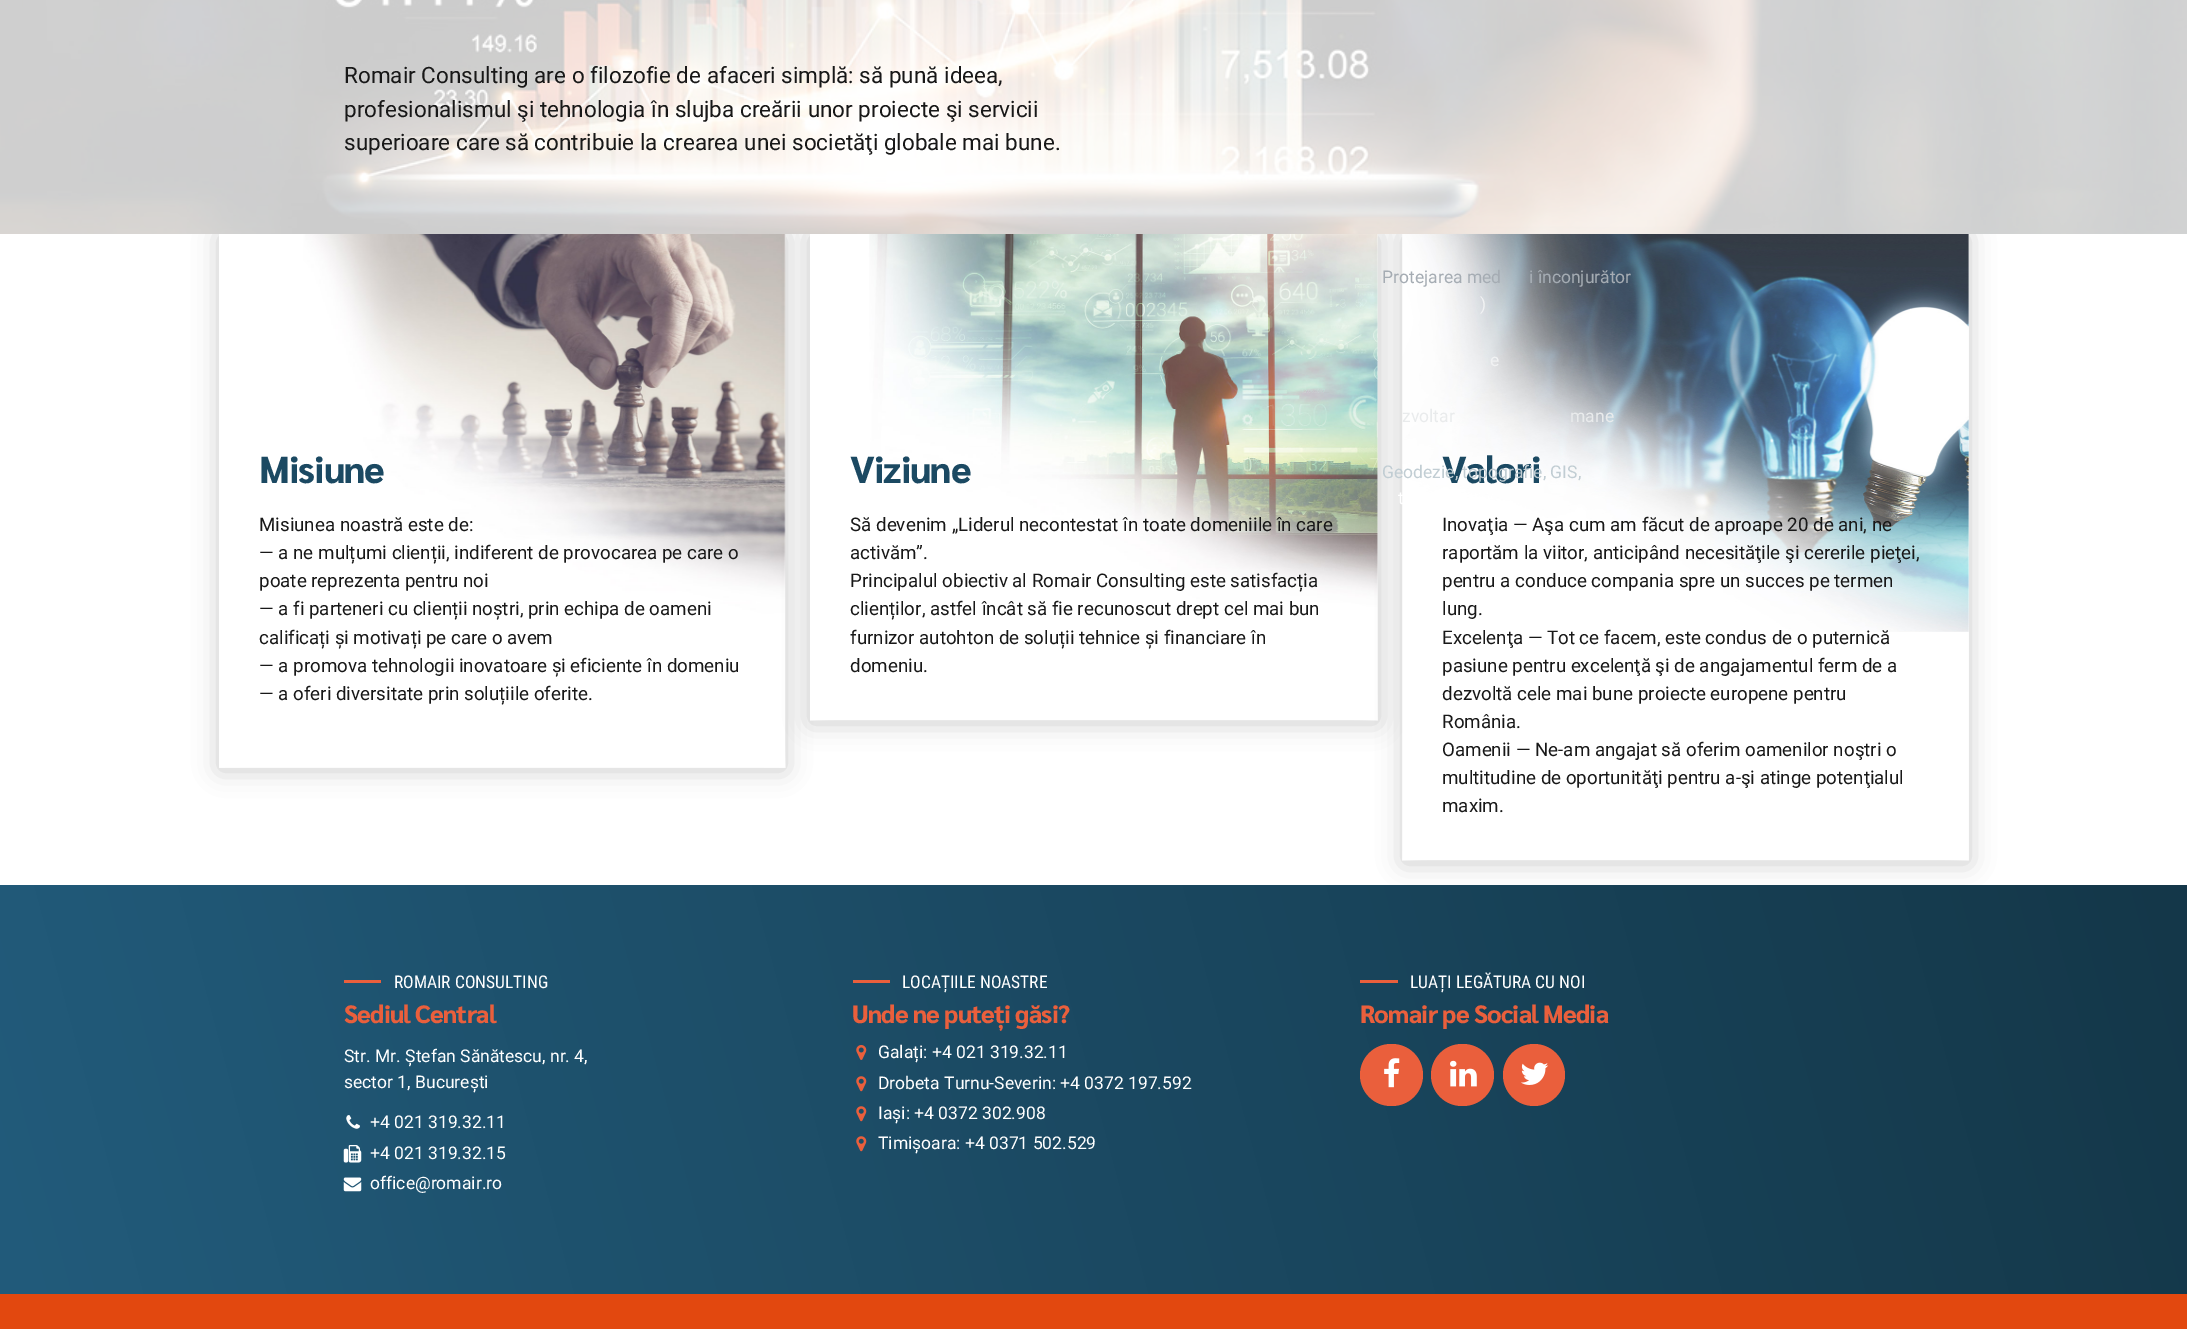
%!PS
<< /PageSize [2187 1329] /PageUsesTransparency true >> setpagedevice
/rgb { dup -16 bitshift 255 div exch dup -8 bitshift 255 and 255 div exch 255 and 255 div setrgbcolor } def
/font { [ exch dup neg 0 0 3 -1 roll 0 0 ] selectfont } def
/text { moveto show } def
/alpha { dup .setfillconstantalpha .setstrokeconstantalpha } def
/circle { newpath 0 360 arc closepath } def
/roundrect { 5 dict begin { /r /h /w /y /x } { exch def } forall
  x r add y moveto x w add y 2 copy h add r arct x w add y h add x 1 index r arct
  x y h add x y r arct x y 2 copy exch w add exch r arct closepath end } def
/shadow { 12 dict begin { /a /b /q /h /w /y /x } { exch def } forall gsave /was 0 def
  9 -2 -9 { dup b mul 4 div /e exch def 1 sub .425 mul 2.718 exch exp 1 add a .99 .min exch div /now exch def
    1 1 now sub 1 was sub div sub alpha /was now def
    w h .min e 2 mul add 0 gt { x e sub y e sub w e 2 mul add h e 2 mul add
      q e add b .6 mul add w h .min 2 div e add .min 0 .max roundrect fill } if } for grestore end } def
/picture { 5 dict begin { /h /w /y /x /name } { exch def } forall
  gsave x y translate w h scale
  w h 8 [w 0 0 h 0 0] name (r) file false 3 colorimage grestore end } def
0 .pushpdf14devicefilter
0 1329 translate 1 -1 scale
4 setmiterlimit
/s1 { /Roboto-Regular 22.5 font 16#181818 rgb } def
/s2 { /Roboto-Regular 18.75 font 16#181818 rgb } def
/s3 { /Roboto-Regular 17.5 font 16#A5ACB3 rgb } def
/s4 { /Roboto-Regular 17.5 font 16#F1F2F3 rgb } def
/s5 { /Roboto-Regular 17.5 font 16#E9EBEC rgb } def
/s6 { /Roboto-Regular 17.5 font 16#C1CDD3 rgb } def
/s7 { /Roboto-Regular 17.5 font 16#FFFFFF rgb } def
/s8 { /RobotoCondensed-Regular 17.5 font 16#FFFFFF rgb } def
16#FFFFFF rgb
0 0 2187 1329 rectfill
(pic1.raw) 0 0 2187 234 picture
16#000000 rgb
219 236 566 534 0 12.5 0.2 shadow
(pic2.raw) 219 234 567 534 picture
810 236 568 487 0 12.5 0.2 shadow
(pic3.raw) 810 234 568 487 picture
1403 236 566 627 0 12.5 0.2 shadow
0.8 alpha
16#FFFFFF rgb
0 0 2187 234 rectfill
1 alpha
s1
(Romair Consulting are o filozofie de afaceri simplă: să pună ideea,) 344 83 text
(profesionalismul şi tehnologia în slujba creării unor proiecte şi servicii) 344 117 text
(superioare care să contribuie la crearea unei societăţi globale mai bune.) 344 150 text
/Sarabun-ExtraBold 37.5 font
16#1B4962 rgb
259 483 moveto -1 0 (Misiune) ashow
s2
(Misiunea noastră este de:) 259 531 text
(— a ne mulțumi clienții, indiferent de provocarea pe care o) 259 559 text
(poate reprezenta pentru noi) 259 587 text
(— a fi parteneri cu clienții noștri, prin echipa de oameni) 259 615 text
(calificați și motivați pe care o avem) 259 644 text
(— a promova tehnologii inovatoare și eficiente în domeniu) 259 672 text
(— a oferi diversitate prin soluțiile oferite.) 259 700 text
/Sarabun-ExtraBold 37.5 font
16#1B4962 rgb
850 483 moveto -1 0 (Viziune) ashow
s2
(Să devenim „Liderul necontestat în toate domeniile în care) 850 531 text
(activăm”.) 850 559 text
(Principalul obiectiv al Romair Consulting este satisfacția) 850 587 text
(clienților, astfel încât să fie recunoscut drept cel mai bun) 850 615 text
(furnizor autohton de soluții tehnice și financiare în) 850 644 text
(domeniu.) 850 672 text
(pic4.raw) 1402 234 567 627 picture
/Sarabun-ExtraBold 37.5 font
16#1B4962 rgb
1442 483 moveto -1 0 (Valori) ashow
s2
(Inovaţia — Aşa cum am făcut de aproape 20 de ani, ne) 1442 531 text
(raportăm la viitor, anticipând necesităţile şi cererile pieţei,) 1442 559 text
(pentru a conduce compania spre un succes pe termen) 1442 587 text
(lung.) 1442 615 text
(Excelenţa — Tot ce facem, este condus de o puternică) 1442 644 text
(pasiune pentru excelenţă şi de angajamentul ferm de a) 1442 672 text
(dezvoltă cele mai bune proiecte europene pentru) 1442 700 text
(România.) 1442 728 text
(Oamenii — Ne-am angajat să oferim oamenilor noştri o) 1442 756 text
(multitudine de oportunităţi pentru a-şi atinge potenţialul) 1442 784 text
(maxim.) 1442 812 text
s3
(Protejarea med) 1382 283 text
(i înconjurător) 1529 283 text
s4
(\)) 1480 310 text
(e) 1490 366 text
s5
(zvoltar) 1402 422 text
(mane) 1570 422 text
s6
(Geodezie, topografie, GIS,) 1382 478 text
s7
(t) 1398 504 text
gsave 0 885 moveto 2187 885 lineto 2187 1294 lineto 0 1294 lineto closepath clip newpath
<< /ShadingType 2 /ColorSpace /DeviceRGB /Coords [22 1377 2165 802] /Extend [true true] /Function << /FunctionType 2 /Domain [0 1] /C0 [0.133 0.357 0.482] /C1 [0.078 0.216 0.286] /N 1 >> >> shfill grestore
16#EA5F3C rgb
344 980 37 3 rectfill
s8
(ROMAIR CONSULTING) 394 988 text
/Sarabun-ExtraBold 25 font
16#EA5F3C rgb
344 1023 moveto -0.75 0 (Sediul Central) ashow
s7
(Str. Mr. Ștefan Sănătescu, nr. 4,) 344 1062 text
(sector 1, București) 344 1088 text
(pic5.raw) 346 1115 14 14 picture
(+4 021 319.32.11) 370 1128 text
(pic6.raw) 343 1145 19 18 picture
(+4 021 319.32.15) 370 1159 text
(pic7.raw) 343 1177 19 15 picture
(office@romair.ro) 370 1189 text
16#EA5F3C rgb
853 980 37 3 rectfill
s8
(LOCAȚIILE NOASTRE) 902 988 text
/Sarabun-ExtraBold 25 font
16#EA5F3C rgb
852 1023 moveto -0.75 0 (Unde ne puteți găsi?) ashow
(pic8.raw) 856 1045 11 15 picture
s7
(Galați: +4 021 319.32.11) 878 1058 text
(pic9.raw) 856 1076 11 16 picture
(Drobeta Turnu-Severin: +4 0372 197.592) 878 1089 text
(pic9.raw) 856 1106 11 16 picture
(Iași: +4 0372 302.908) 878 1119 text
(pic10.raw) 856 1136 11 16 picture
(Timișoara: +4 0371 502.529) 878 1149 text
16#EA5F3C rgb
1360 980 38 3 rectfill
s8
(LUAȚI LEGĂTURA CU NOI) 1410 988 text
/Sarabun-ExtraBold 25 font
16#EA5F3C rgb
1360 1023 moveto -0.75 0 (Romair pe Social Media) ashow
1360 1044 63 62 31 roundrect fill
(pic11.raw) 1384 1058 16 30 picture
1431 1044 63 62 31 roundrect fill
(pic12.raw) 1450 1060 27 27 picture
1534 1075 31 circle fill
(pic13.raw) 1521 1062 28 23 picture
16#E2480F rgb
0 1294 2187 35 rectfill
.poppdf14devicefilter showpage
